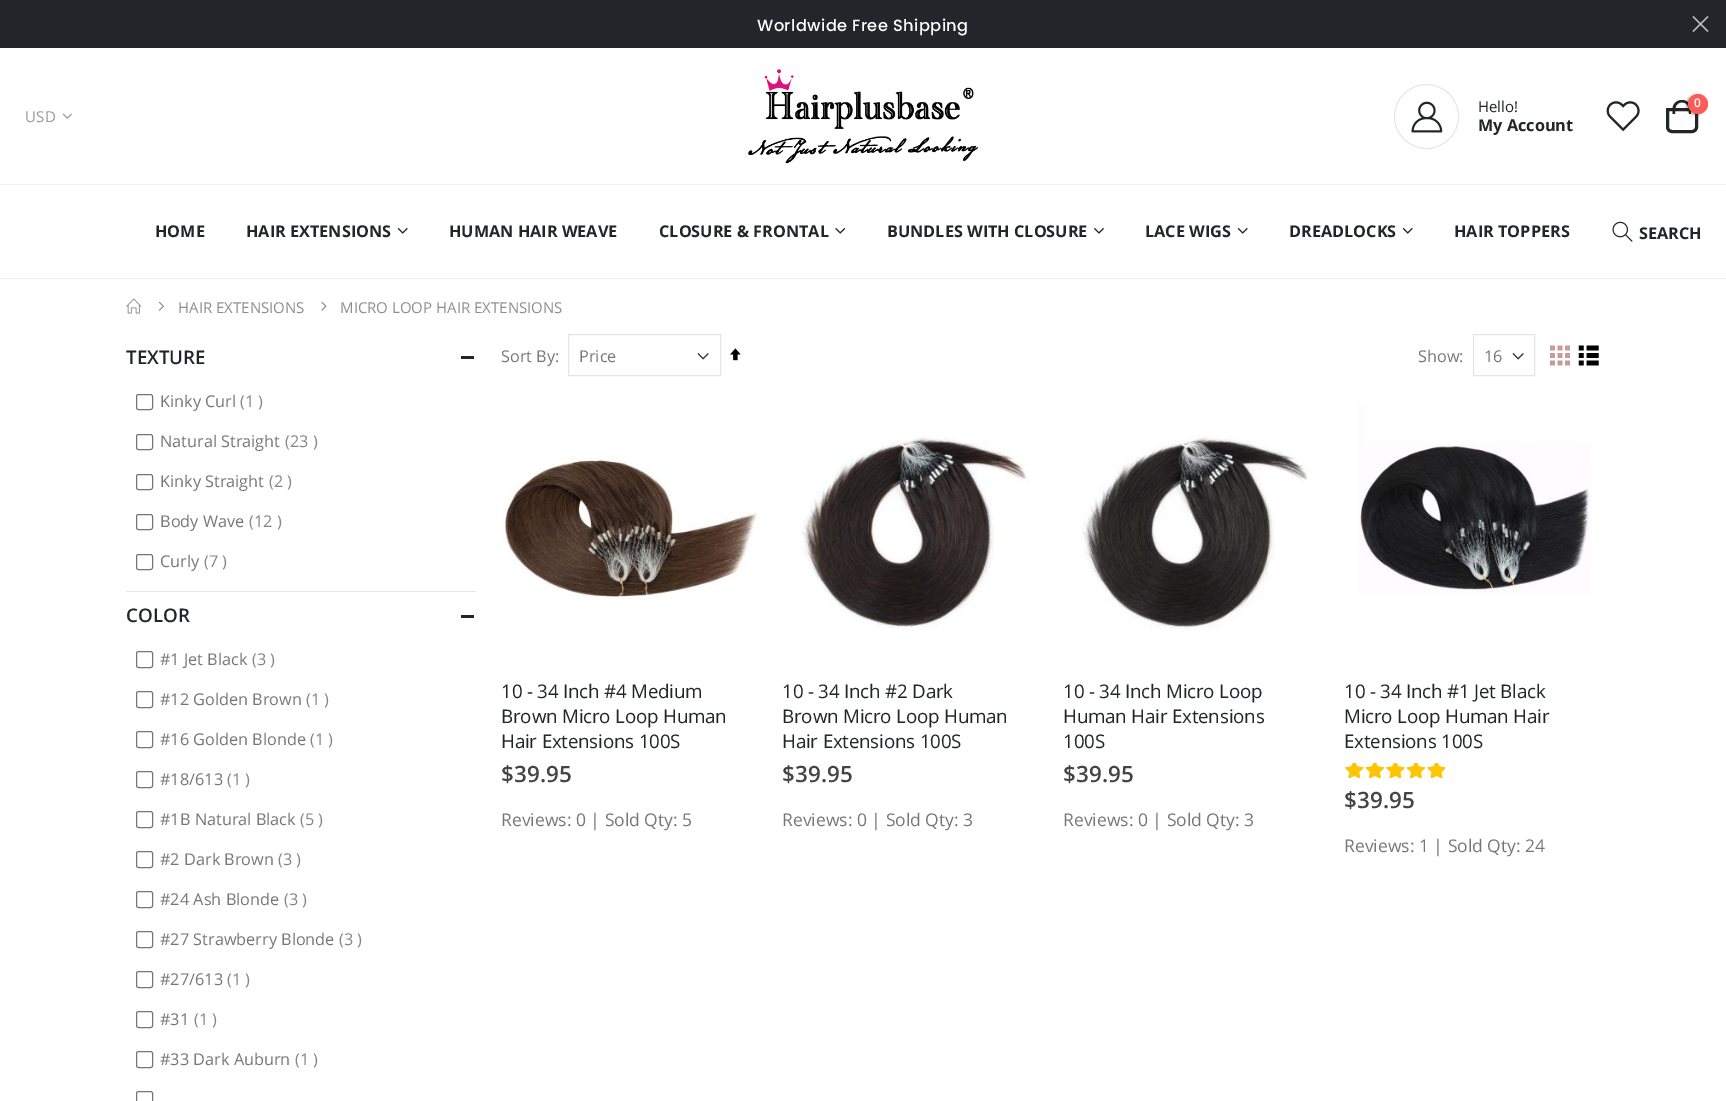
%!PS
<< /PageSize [1726 1101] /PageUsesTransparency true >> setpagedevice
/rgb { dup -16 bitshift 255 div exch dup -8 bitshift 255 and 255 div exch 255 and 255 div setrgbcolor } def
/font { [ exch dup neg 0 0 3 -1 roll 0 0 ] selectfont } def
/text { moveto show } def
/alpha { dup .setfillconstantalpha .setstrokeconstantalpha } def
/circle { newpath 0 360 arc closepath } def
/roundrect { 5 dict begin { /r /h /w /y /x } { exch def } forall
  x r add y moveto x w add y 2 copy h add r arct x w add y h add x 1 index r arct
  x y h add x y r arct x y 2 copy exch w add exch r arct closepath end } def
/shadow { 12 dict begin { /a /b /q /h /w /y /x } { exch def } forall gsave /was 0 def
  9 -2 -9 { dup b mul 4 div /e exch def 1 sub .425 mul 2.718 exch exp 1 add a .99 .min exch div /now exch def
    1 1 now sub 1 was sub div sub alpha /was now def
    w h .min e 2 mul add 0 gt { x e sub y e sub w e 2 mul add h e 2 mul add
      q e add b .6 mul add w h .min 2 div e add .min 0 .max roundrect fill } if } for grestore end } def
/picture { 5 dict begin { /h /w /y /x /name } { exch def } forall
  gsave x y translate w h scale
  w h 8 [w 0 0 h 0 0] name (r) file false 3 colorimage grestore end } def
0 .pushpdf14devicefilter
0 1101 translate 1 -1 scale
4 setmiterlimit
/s1 { /OpenSans-Regular 15 font 16#222529 rgb } def
/s2 { /OpenSans-Bold 16.25 font 16#222529 rgb } def
/s3 { /OpenSans-SemiBold 12 font 16#FFFFFF rgb } def
/s4 { /OpenSans-Regular 15 font 16#8E8E8E rgb } def
/s5 { /OpenSans-SemiBold 18.75 font 16#222529 rgb } def
/s6 { /OpenSans-Regular 16.25 font 16#777777 rgb } def
/s7 { /OpenSans-Regular 16.25 font 16#858585 rgb } def
/s8 { /OpenSans-SemiBold 22.5 font 16#444444 rgb } def
/s9 { /OpenSans-Regular 17.5 font 16#777777 rgb } def
16#FFFFFF rgb
0 0 1726 1101 rectfill
16#222529 rgb
0 0 1726 48 rectfill
/Poppins-Medium 16.25 font
16#FFFFFF rgb
757 31 moveto 0.4 0 (Worldwide Free Shipping) ashow
16#BDBEBF rgb
1693.5 16 moveto 1708.5 31 lineto 1707.5 32 lineto 1692.5 17 lineto closepath fill
1707.5 16 moveto 1708.5 17 lineto 1693.5 32 lineto 1692.5 31 lineto closepath fill
/OpenSans-Regular 15 font
16#999999 rgb
25 122 moveto 0.5 0 (USD) ashow
(pic1.raw) 63 113 9 6 picture
(pic2.raw) 748 69 230 95 picture
16#E7E7E7 rgb
1426.5 116.5 32 circle stroke
(pic3.raw) 1411 101 32 32 picture
s1
(Hello!) 1478 112 text
s2
(My Account) 1478 131 text
(pic4.raw) 1606 101 34 31 picture
3 setlinewidth
1667.5 109.5 moveto 1696.5 109.5 lineto 1696.5 127 lineto 1696.5 129.5 1694.5 131.5 1692 131.5 curveto 1672 131.5 lineto 1669.5 131.5 1667.5 129.5 1667.5 127 curveto closepath stroke
1682 100 moveto 1687 100 1691 104 1691 109.5 curveto 1691 114 lineto 1672.5 114 lineto 1672.5 109.5 lineto 1672.5 104 1676.5 100 1682 100 curveto closepath 1682 102.5 moveto 1689 102.5 1689 109 1689 114 curveto 1675 114 lineto 1675 109 1675 102.5 1682 102.5 curveto closepath eofill
16#000000 rgb
1686 95 20 20 10 1 0.3 shadow
16#FF5B5B rgb
1698 104 10 circle fill
s3
(0) 1694 107 text
16#F0F0F0 rgb
0 184 1726 1 rectfill
0 278 1726 1 rectfill
s2
(HOME) 155 237 text
(HAIR EXTENSIONS) 246 237 text
(pic5.raw) 397 228 11 6 picture
(HUMAN HAIR WEAVE) 449 237 text
(CLOSURE & FRONTAL) 659 237 text
(pic6.raw) 835 228 11 6 picture
(BUNDLES WITH CLOSURE) 887 237 text
(pic7.raw) 1094 228 10 6 picture
(LACE WIGS) 1145 237 text
(pic5.raw) 1237 228 11 6 picture
(DREADLOCKS) 1289 237 text
(pic5.raw) 1402 228 11 6 picture
(HAIR TOPPERS) 1454 237 text
(pic8.raw) 1612 221 21 21 picture
(SEARCH) 1639 239 text
(pic9.raw) 126 298 16 16 picture
(pic10.raw) 158 301 6 10 picture
s4
(HAIR EXTENSIONS) 178 313 text
(pic11.raw) 321 301 6 10 picture
(MICRO LOOP HAIR EXTENSIONS) 340 313 text
16#E7E7E7 rgb
126 591 350 1 rectfill
s5
(TEXTURE) 126 364 text
461 356 13 3 rectfill
16#767676 rgb
1 setlinewidth
136.5 394.5 16 15 2 roundrect stroke
s6
(Kinky Curl) 160 407 text
s7
(\(1 \)) 240 407 text
16#767676 rgb
136.5 434.5 16 15 2 roundrect stroke
s6
(Natural Straight) 160 447 text
s7
(\(23 \)) 285 447 text
16#767676 rgb
136.5 474.5 16 15 2 roundrect stroke
s6
(Kinky Straight) 160 487 text
s7
(\(2 \)) 269 487 text
16#767676 rgb
136.5 514.5 16 15 2 roundrect stroke
s6
(Body Wave) 160 527 text
s7
(\(12 \)) 249 527 text
16#767676 rgb
136.5 554.5 16 15 2 roundrect stroke
s6
(Curly) 160 567 text
s7
(\(7 \)) 204 567 text
s5
(COLOR) 126 622 text
461 615 13 3 rectfill
16#767676 rgb
136.5 651.5 16 16 2 roundrect stroke
s6
(#1 Jet Black) 160 665 text
s7
(\(3 \)) 252 665 text
16#767676 rgb
136.5 691.5 16 16 2 roundrect stroke
s6
(#12 Golden Brown) 160 705 text
s7
(\(1 \)) 306 705 text
16#767676 rgb
136.5 731.5 16 16 2 roundrect stroke
s6
(#16 Golden Blonde) 160 745 text
s7
(\(1 \)) 310 745 text
16#767676 rgb
136.5 771.5 16 16 2 roundrect stroke
s6
(#18/613) 160 785 text
s7
(\(1 \)) 227 785 text
16#767676 rgb
136.5 811.5 16 16 2 roundrect stroke
s6
(#1B Natural Black) 160 825 text
s7
(\(5 \)) 300 825 text
16#767676 rgb
136.5 851.5 16 16 2 roundrect stroke
s6
(#2 Dark Brown) 160 865 text
s7
(\(3 \)) 278 865 text
16#767676 rgb
136.5 891.5 16 16 2 roundrect stroke
s6
(#24 Ash Blonde) 160 905 text
s7
(\(3 \)) 284 905 text
16#767676 rgb
136.5 931.5 16 16 2 roundrect stroke
s6
(#27 Strawberry Blonde) 160 945 text
s7
(\(3 \)) 339 945 text
16#767676 rgb
136.5 971.5 16 16 2 roundrect stroke
s6
(#27/613) 160 985 text
s7
(\(1 \)) 227 985 text
16#767676 rgb
136.5 1011.5 16 16 2 roundrect stroke
s6
(#31) 160 1025 text
s7
(\(1 \)) 194 1025 text
16#767676 rgb
136.5 1051.5 16 16 2 roundrect stroke
s6
(#33 Dark Auburn) 160 1065 text
s7
(\(1 \)) 295 1065 text
16#767676 rgb
136.5 1091.5 16 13 2 roundrect stroke
s6
(Sort By:) 501 362 text
(pic12.raw) 697 353 12 7 picture
16#E4E4E4 rgb
568.5 334.5 152 41 rectstroke
s6
(Price) 579 362 text
(pic13.raw) 730 348 11 13 picture
(Show:) 1418 362 text
(pic12.raw) 1512 353 12 7 picture
16#E4E4E4 rgb
1473.5 334.5 61 41 rectstroke
s6
(16) 1484 362 text
(pic14.raw) 1550 345 20 21 picture
(pic15.raw) 1578 345 21 21 picture
(pic16.raw) 501 456 257 147 picture
/OpenSans-Regular 18.75 font
16#222529 rgb
501 698 moveto -0.2 0 (10 - 34 Inch #4 Medium) ashow
501 723 moveto -0.2 0 (Brown Micro Loop Human) ashow
501 748 moveto -0.2 0 (Hair Extensions 100S) ashow
s8
($39.95) 501 782 text
s9
(Reviews: 0 | Sold Qty: 5) 501 826 text
(pic17.raw) 801 436 228 193 picture
/OpenSans-Regular 18.75 font
16#222529 rgb
782 698 moveto -0.2 0 (10 - 34 Inch #2 Dark) ashow
782 723 moveto -0.2 0 (Brown Micro Loop Human) ashow
782 748 moveto -0.2 0 (Hair Extensions 100S) ashow
s8
($39.95) 782 782 text
s9
(Reviews: 0 | Sold Qty: 3) 782 826 text
(pic18.raw) 1081 436 229 194 picture
/OpenSans-Regular 18.75 font
16#222529 rgb
1063 698 moveto -0.2 0 (10 - 34 Inch Micro Loop) ashow
1063 723 moveto -0.2 0 (Human Hair Extensions) ashow
1063 748 moveto -0.2 0 (100S) ashow
s8
($39.95) 1063 782 text
s9
(Reviews: 0 | Sold Qty: 3) 1063 826 text
(pic19.raw) 1358 404 233 189 picture
/OpenSans-Regular 18.75 font
16#222529 rgb
1344 698 moveto -0.2 0 (10 - 34 Inch #1 Jet Black) ashow
1344 723 moveto -0.2 0 (Micro Loop Human Hair) ashow
1344 748 moveto -0.2 0 (Extensions 100S) ashow
(pic20.raw) 1345 763 100 15 picture
(pic21.raw) 1345 763 100 15 picture
s8
($39.95) 1344 808 text
s9
(Reviews: 1 | Sold Qty: 24) 1344 852 text
.poppdf14devicefilter showpage
